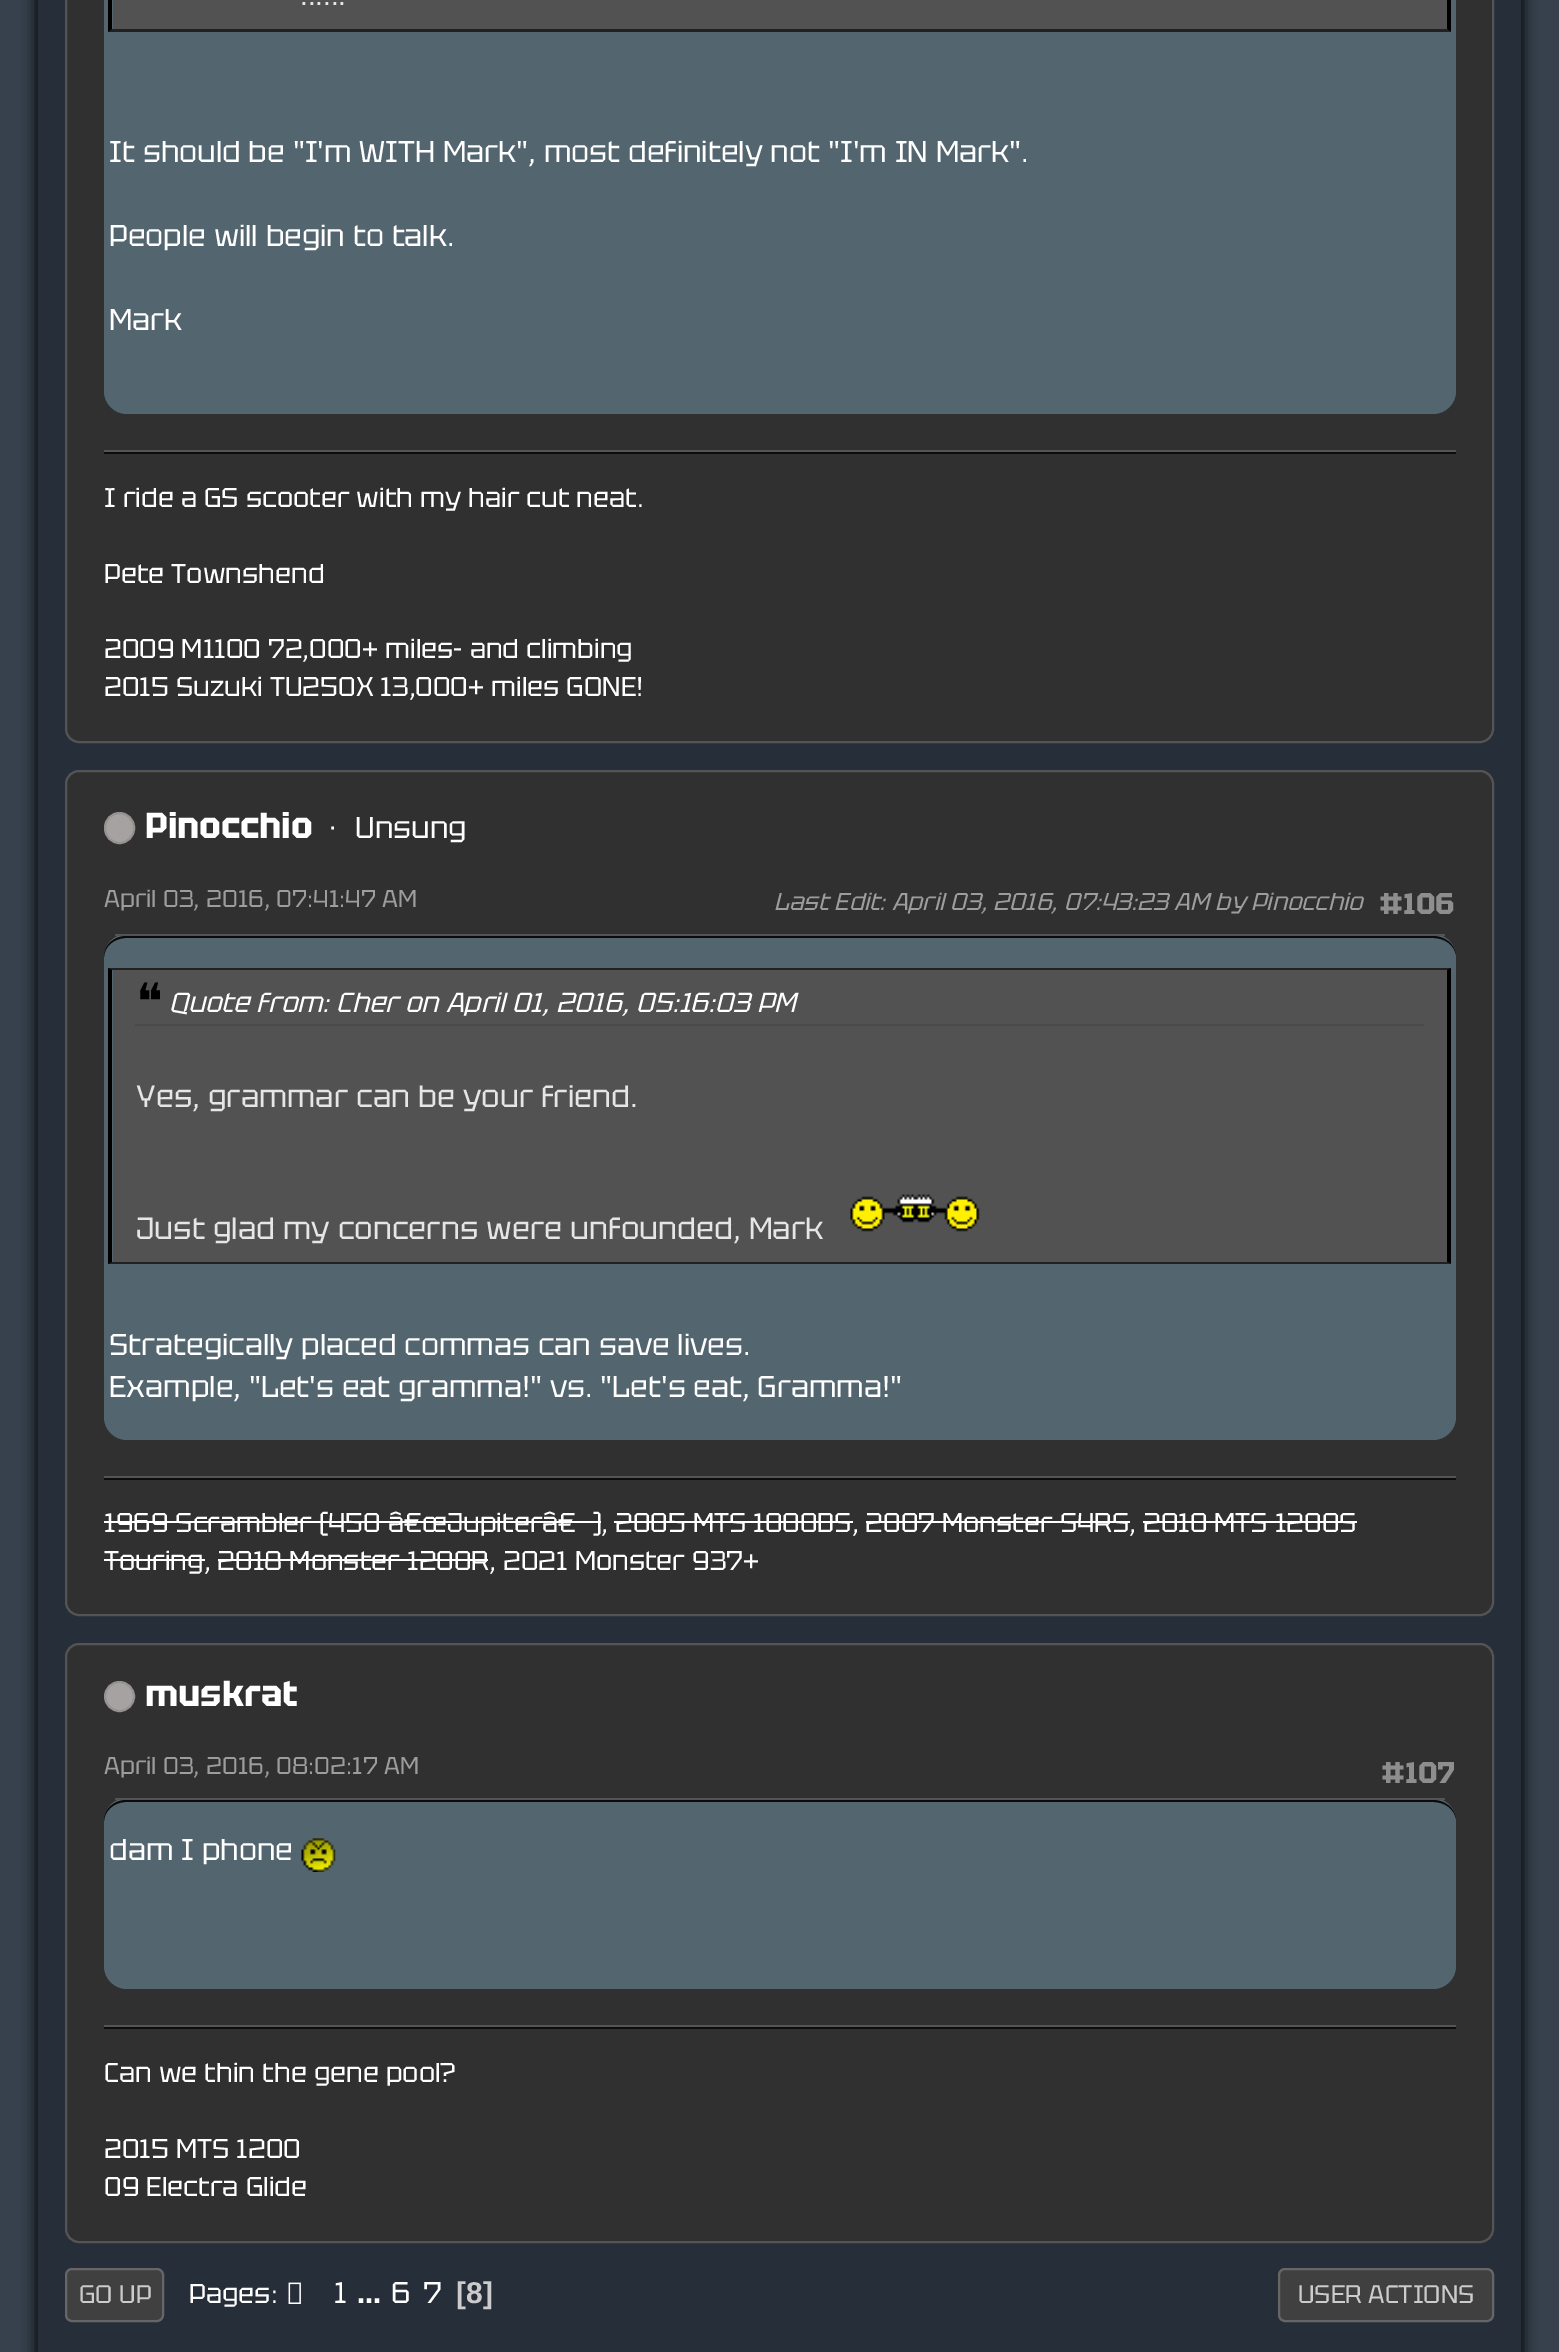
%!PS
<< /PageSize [1559 2352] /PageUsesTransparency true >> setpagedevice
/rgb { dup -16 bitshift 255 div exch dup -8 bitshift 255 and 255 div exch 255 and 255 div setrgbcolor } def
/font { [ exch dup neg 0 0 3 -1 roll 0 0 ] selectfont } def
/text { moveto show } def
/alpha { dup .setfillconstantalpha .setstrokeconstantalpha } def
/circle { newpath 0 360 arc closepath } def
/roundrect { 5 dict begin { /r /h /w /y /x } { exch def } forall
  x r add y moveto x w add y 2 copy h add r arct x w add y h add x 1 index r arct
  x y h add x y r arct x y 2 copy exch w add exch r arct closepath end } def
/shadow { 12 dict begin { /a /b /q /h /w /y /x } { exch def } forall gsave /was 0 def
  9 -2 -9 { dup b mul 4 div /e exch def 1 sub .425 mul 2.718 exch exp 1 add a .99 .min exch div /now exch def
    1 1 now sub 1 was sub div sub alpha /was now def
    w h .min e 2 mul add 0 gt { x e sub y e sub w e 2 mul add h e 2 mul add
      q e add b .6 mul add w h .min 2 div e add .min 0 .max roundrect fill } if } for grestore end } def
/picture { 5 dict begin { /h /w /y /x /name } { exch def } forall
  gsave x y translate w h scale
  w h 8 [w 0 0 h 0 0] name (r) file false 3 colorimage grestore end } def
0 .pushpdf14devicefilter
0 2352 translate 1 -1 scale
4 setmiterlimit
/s1 { /Tektur-Regular 30.6 font 16#E6E6E6 rgb } def
/s2 { /Tektur-Regular 30 font 16#FFFFFF rgb } def
/s3 { /Tektur-Regular 27 font 16#FFFFFF rgb } def
/s4 { /Tektur-Bold 36 font 16#FFFFFF rgb } def
/s5 { /Tektur-Regular 24.3 font 16#9D9D9D rgb } def
/s6 { /Tektur-Italic 24.3 font 16#9D9D9D rgb } def
/s7 { /Tektur-Bold 30 font 16#8E8E8E rgb } def
/s8 { /DejaVuSans-Regular 50 font 16#000000 rgb } def
/s9 { /Tektur-Italic 27.5 font 16#FFFFFF rgb } def
/s10 { /Tektur-Regular 25.25 font 16#CCCCCC rgb } def
/s11 { /Tektur-Bold 30 font 16#FFFFFF rgb } def
/s12 { /LiberationSans-Bold 30 font 16#CCCCCC rgb } def
16#37414D rgb
0 0 1559 2352 rectfill
16#000000 rgb
36 -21 1487 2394 0 7 1 shadow
16#262E39 rgb
38 0 1483 2352 rectfill
16#303030 rgb
66 -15 1427 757 13 roundrect gsave fill grestore
16#545454 rgb
2 setlinewidth
stroke
16#53656F rgb
104 -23 1352 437 23 roundrect fill
16#525252 rgb
113 0 1334 29 rectfill
16#000000 rgb
1451 -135 moveto 1451 32 lineto 1447 29 lineto 1447 -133 lineto closepath fill
16#212121 rgb
1451 32 moveto 108 32 lineto 112 29 lineto 1447 29 lineto closepath fill
16#000000 rgb
108 32 moveto 108 -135 lineto 112 -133 lineto 112 29 lineto closepath fill
s1
(......) 300 5 text
s2
(It should be "I'm WITH Mark", most definitely not "I'm IN Mark".) 109 162 text
(People will begin to talk.) 109 246 text
(Mark) 109 330 text
16#0B0B0B rgb
104 452 1352 2 rectfill
16#545454 rgb
104 450 1352 2 rectfill
s3
(I ride a GS scooter with my hair cut neat.) 104 507 text
(Pete Townshend) 104 583 text
(2009 M1100 72,000+ miles- and climbing) 104 658 text
(2015 Suzuki TU250X 13,000+ miles GONE!) 104 696 text
16#303030 rgb
66 771 1427 844 13 roundrect gsave fill grestore
16#545454 rgb
stroke
16#A7A2A2 rgb
105 813 29 30 14.5 roundrect gsave fill grestore
16#969292 rgb
stroke
s4
(Pinocchio) 145 838 text
s2
(·) 330 838 text
(Unsung) 355 838 text
s5
(April 03, 2016, 07:41:47 AM) 104 907 text
s6
(Last Edit: April 03, 2016, 07:43:23 AM by Pinocchio) 774 910 text
s7
(#106) 1379 914 text
16#53656F rgb
104 934 1352 506 23 roundrect fill
16#0B0B0B rgb
126 938 moveto 1433 938 lineto 1445 938 1454 945 1456 955 curveto 1455 944 1445 936 1433 936 curveto 126 936 lineto 114 936 104 945 104 956 curveto 104 1418 lineto 104 1423 lineto 104 958 lineto 104 946 115 938 126 938 curveto closepath fill
16#545454 rgb
115 934 1330 2 rectfill
16#525252 rgb
113 970 1334 292 rectfill
16#212121 rgb
108 968 moveto 1451 968 lineto 1447 970 lineto 112 970 lineto closepath fill
16#000000 rgb
1451 968 moveto 1451 1264 lineto 1447 1262 lineto 1447 970 lineto closepath fill
16#212121 rgb
1451 1264 moveto 108 1264 lineto 112 1262 lineto 1447 1262 lineto closepath fill
16#000000 rgb
108 1264 moveto 108 968 lineto 112 970 lineto 112 1262 lineto closepath fill
16#4A4A4A rgb
135 1024 1289 2 rectfill
s8
(❝) 136 1019 text
s9
(Quote from: Cher on April 01, 2016, 05:16:03 PM) 169 1012 text
s1
(Yes, grammar can be your friend.) 136 1107 text
(Just glad my concerns were unfounded, Mark) 136 1239 text
(pic1.raw) 850 1194 130 38 picture
s2
(Strategically placed commas can save lives.) 109 1355 text
(Example, "Let's eat gramma!" vs. "Let's eat, Gramma!") 109 1397 text
16#0B0B0B rgb
104 1478 1352 2 rectfill
16#545454 rgb
104 1476 1352 2 rectfill
s3
(1969 Scrambler \(450 â€œJupiterâ€) 104 1532 text
104 1521 497 2 rectfill
(\)) 593 1532 text
(, 2005 MTS 1000DS, 2007 Monster S4RS) 601 1532 text
866 1521 264 2 rectfill
(, 2010 MTS 1200S) 1129 1532 text
614 1521 239 2 rectfill
(Touring, 2018 Monster 1200R) 104 1570 text
1143 1521 214 2 rectfill
104 1559 101 2 rectfill
(, 2021 Monster 937+) 489 1570 text
218 1559 270 2 rectfill
16#303030 rgb
66 1644 1427 598 13 roundrect gsave fill grestore
16#545454 rgb
stroke
16#A7A2A2 rgb
119.5 1696.5 14.5 circle gsave fill grestore
16#969292 rgb
stroke
s4
(muskrat) 145 1706 text
s5
(April 03, 2016, 08:02:17 AM) 104 1774 text
s7
(#107) 1381 1783 text
16#53656F rgb
104 1798 1352 191 23 roundrect fill
16#0B0B0B rgb
126 1802 moveto 1433 1802 lineto 1445 1802 1454 1809 1456 1819 curveto 1455 1808 1445 1800 1433 1800 curveto 126 1800 lineto 114 1800 104 1809 104 1820 curveto 104 1966 lineto 104 1972 lineto 104 1822 lineto 104 1811 114 1802 126 1802 curveto closepath fill
16#545454 rgb
115 1798 1330 2 rectfill
s2
(dam I phone) 109 1860 text
(pic2.raw) 301 1838 35 34 picture
16#0B0B0B rgb
104 2027 1352 2 rectfill
16#545454 rgb
104 2025 1352 2 rectfill
s3
(Can we thin the gene pool?) 104 2082 text
(2015 MTS 1200) 104 2158 text
(09 Electra Glide) 104 2196 text
16#404040 rgb
66 2269 97 52 6 roundrect gsave fill grestore
16#666666 rgb
stroke
s10
(GO UP) 79 2303 text
s3
(Pages:) 189 2303 text
(pic3.raw) 288 2282 13 22 picture
s2
(1) 334 2303 text
s11
(...) 357 2303 text
s2
(6) 391 2303 text
(7) 423 2303 text
s12
([8]) 456 2303 text
16#404040 rgb
1279 2269 214 52 6 roundrect gsave fill grestore
16#666666 rgb
stroke
s10
(USER ACTIONS) 1298 2303 text
.poppdf14devicefilter showpage
